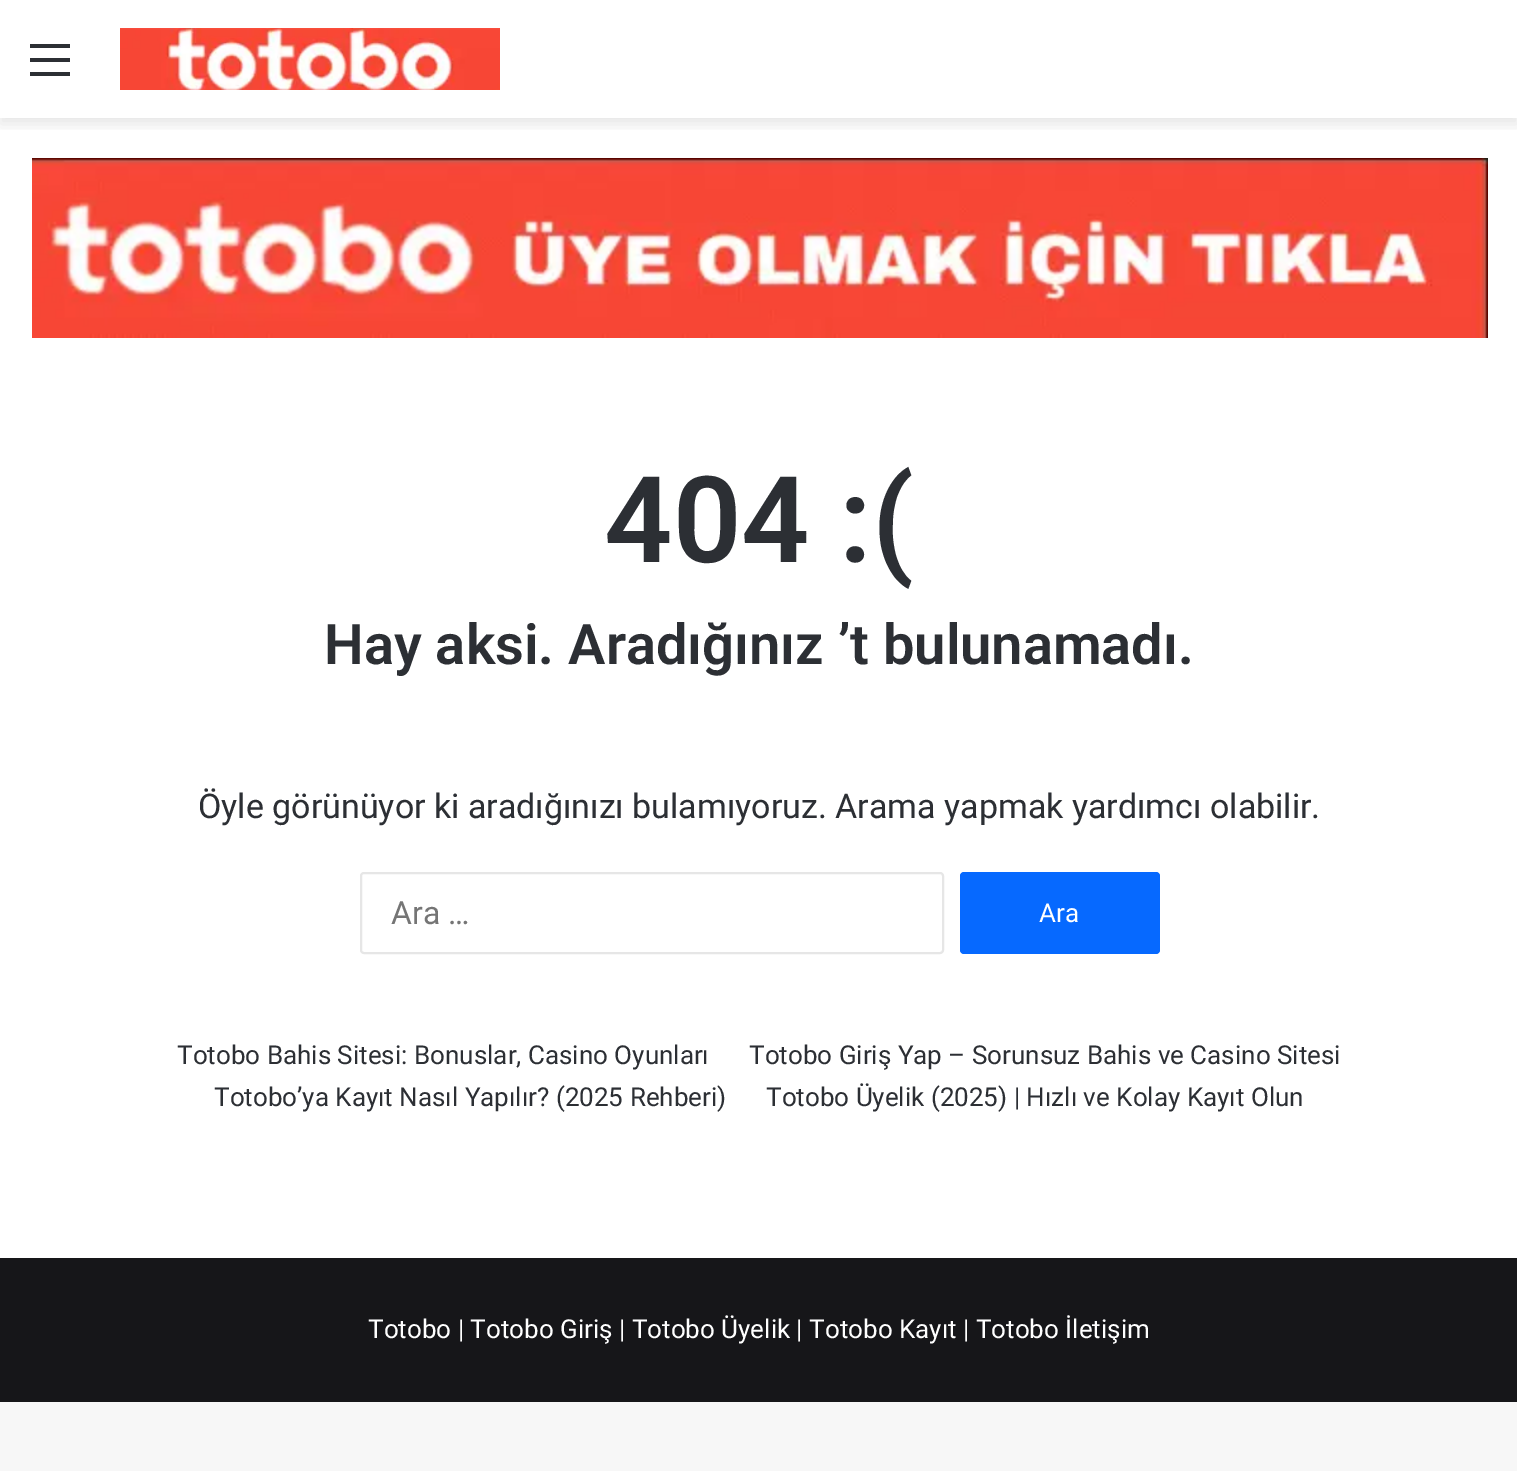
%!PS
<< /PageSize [1517 1471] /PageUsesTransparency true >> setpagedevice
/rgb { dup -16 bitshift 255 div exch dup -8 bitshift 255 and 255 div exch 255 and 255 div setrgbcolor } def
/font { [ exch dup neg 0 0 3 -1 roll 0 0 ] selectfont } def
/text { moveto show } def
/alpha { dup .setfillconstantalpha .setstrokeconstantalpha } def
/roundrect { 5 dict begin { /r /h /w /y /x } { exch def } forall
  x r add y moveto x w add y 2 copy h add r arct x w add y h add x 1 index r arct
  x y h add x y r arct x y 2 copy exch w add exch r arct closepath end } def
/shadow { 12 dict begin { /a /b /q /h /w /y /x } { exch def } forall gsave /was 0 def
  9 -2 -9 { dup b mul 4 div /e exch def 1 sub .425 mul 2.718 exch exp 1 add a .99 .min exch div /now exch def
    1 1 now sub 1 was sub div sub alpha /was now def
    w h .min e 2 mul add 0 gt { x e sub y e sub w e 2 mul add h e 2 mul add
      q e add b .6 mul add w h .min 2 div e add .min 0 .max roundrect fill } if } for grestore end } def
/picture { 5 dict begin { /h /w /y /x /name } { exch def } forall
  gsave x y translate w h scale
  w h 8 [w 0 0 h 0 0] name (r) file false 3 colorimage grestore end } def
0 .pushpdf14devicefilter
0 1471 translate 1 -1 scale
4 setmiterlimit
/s1 { /Roboto-SemiBold 120 font 16#2C2F34 rgb } def
/s2 { /Roboto-SemiBold 56 font 16#2C2F34 rgb } def
/s3 { /Roboto-Regular 34 font 16#2C2F34 rgb } def
/s4 { /Roboto-Regular 32 font 16#757575 rgb } def
/s5 { /Roboto-Regular 26 font 16#FFFFFF rgb } def
/s6 { /Roboto-Regular 26 font 16#2C2F34 rgb } def
16#F7F7F7 rgb
0 0 1517 1471 rectfill
16#FFFFFF rgb
0 0 1517 1258 rectfill
gsave
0 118 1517 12 rectclip
16#000000 rgb
0 6 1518 118 0 7 0.1 shadow
grestore
16#2C2F34 rgb
30 58 40 4 rectfill
30 44 40 4 rectfill
30 72 40 4 rectfill
(pic1.raw) 120 28 380 62 picture
(pic2.raw) 32 158 1456 180 picture
s1
(404 :\() 604 562 text
s2
(Hay aksi. Aradığınız ’t bulunamadı.) 324 664 text
s3
(Öyle görünüyor ki aradığınızı bulamıyoruz. Arama yapmak yardımcı olabilir.) 198 818 text
16#E6E6E6 rgb
2 setlinewidth
361 873 582 80 3 roundrect stroke
s4
(Ara …) 391 924 text
16#0669FF rgb
960 872 200 82 4 roundrect fill
s5
(Ara) 1039 922 text
s6
(Totobo Bahis Sitesi: Bonuslar, Casino Oyunları) 177 1064 text
(Totobo Giriş Yap – Sorunsuz Bahis ve Casino Sitesi) 749 1064 text
(Totobo’ya Kayıt Nasıl Yapılır? \(2025 Rehberi\)) 214 1106 text
(Totobo Üyelik \(2025\) | Hızlı ve Kolay Kayıt Olun) 766 1106 text
16#161619 rgb
0 1258 1517 144 rectfill
s5
(Totobo | Totobo Giriş | Totobo Üyelik | Totobo Kayıt | Totobo İletişim) 368 1338 text
.poppdf14devicefilter showpage
